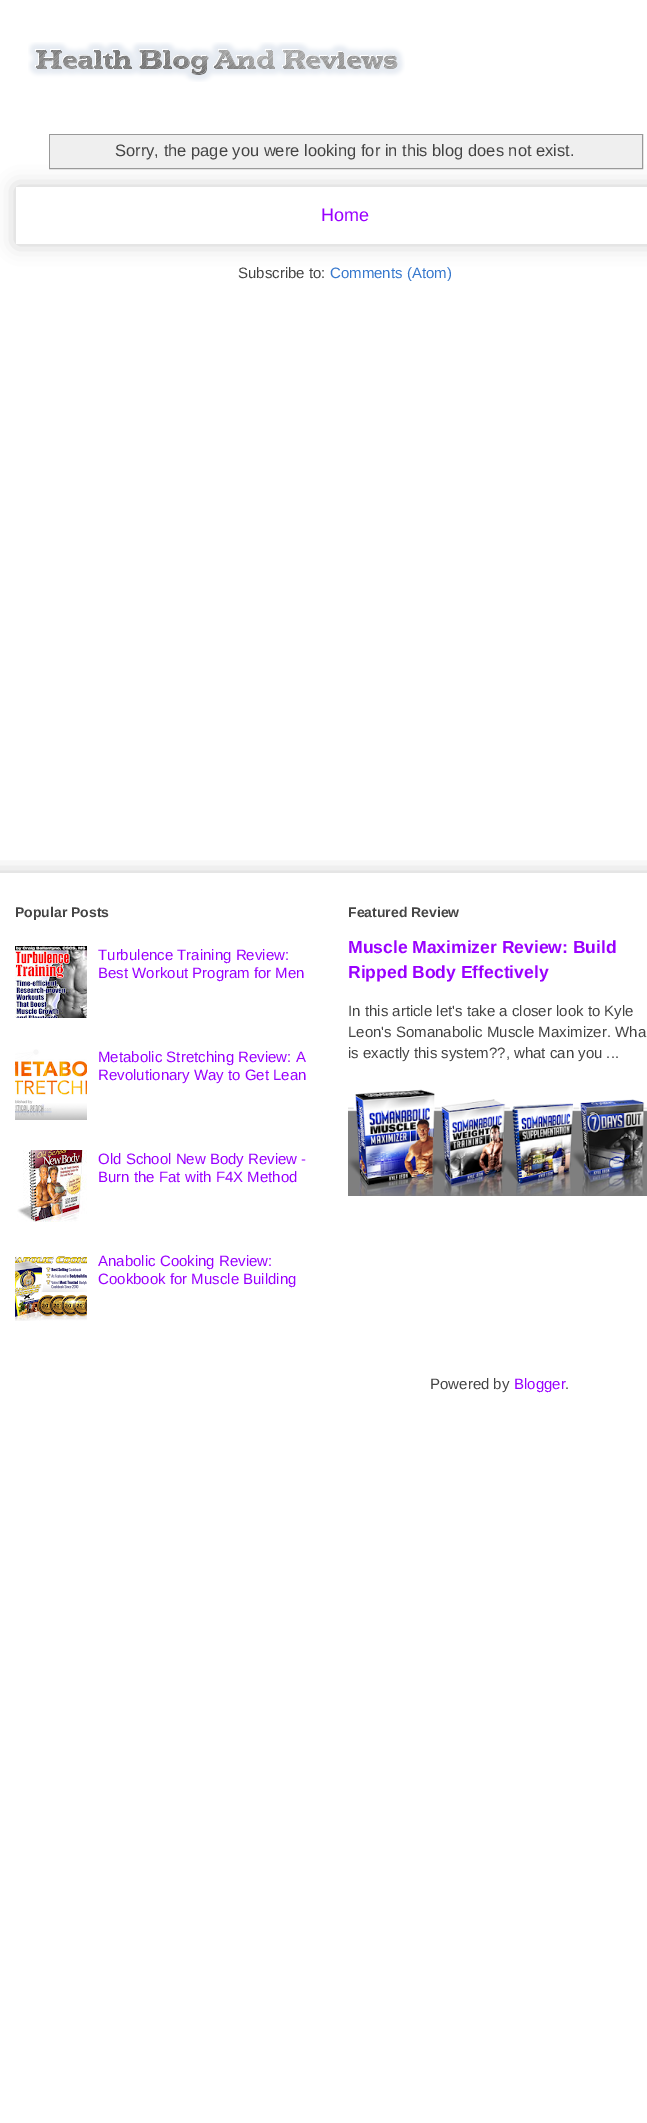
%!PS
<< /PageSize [647 2123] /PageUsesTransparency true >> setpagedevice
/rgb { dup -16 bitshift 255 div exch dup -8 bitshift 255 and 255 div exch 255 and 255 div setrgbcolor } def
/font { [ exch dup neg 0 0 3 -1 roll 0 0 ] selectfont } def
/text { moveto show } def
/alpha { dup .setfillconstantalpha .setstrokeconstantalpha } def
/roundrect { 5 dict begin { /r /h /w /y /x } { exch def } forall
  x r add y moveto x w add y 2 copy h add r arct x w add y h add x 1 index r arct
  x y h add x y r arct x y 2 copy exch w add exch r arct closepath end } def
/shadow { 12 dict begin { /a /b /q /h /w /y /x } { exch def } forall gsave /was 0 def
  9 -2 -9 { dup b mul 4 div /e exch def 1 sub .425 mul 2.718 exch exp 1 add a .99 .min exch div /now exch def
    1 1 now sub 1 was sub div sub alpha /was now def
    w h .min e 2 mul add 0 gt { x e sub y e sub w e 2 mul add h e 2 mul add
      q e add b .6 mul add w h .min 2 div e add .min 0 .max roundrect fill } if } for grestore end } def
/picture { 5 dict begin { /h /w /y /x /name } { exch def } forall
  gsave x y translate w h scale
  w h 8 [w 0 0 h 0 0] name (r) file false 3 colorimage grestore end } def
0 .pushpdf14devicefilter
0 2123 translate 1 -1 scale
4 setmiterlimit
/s1 { /LiberationSans-Regular 16.5 font 16#444444 rgb } def
/s2 { /LiberationSans-Regular 18 font 16#9900FF rgb } def
/s3 { /LiberationSans-Regular 15 font 16#444444 rgb } def
/s4 { /LiberationSans-Regular 15 font 16#3778CD rgb } def
/s5 { /LiberationSans-Bold 14 font 16#444444 rgb } def
/s6 { /LiberationSans-Regular 15 font 16#9900FF rgb } def
/s7 { /LiberationSans-Bold 17.5 font 16#9900FF rgb } def
16#FFFFFF rgb
0 0 647 2123 rectfill
(pic1.raw) 28 42 377 40 picture
gsave
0 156 moveto 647 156 lineto 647 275 lineto 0 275 lineto closepath 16 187 moveto 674 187 lineto 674 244 lineto 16 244 lineto closepath eoclip newpath
16#000000 rgb
16 187 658 57 0 10 0.2 shadow
grestore
16#999999 rgb
49.5 134.5 593 34 rectstroke
16#EFEFEF rgb
50 135 592 33 rectfill
s1
(Sorry, the page you were looking for in this blog does not exist.) 115 156 text
s2
(Home) 321 221 text
s3
(Subscribe to:) 238 278 text
s4
(Comments \(Atom\)) 330 278 text
gsave
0 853 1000 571 rectclip
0 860 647 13 rectclip
16#000000 rgb
-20 873 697 551 0 10 0.2 shadow
grestore
s5
(Popular Posts) 15 917 text
(pic2.raw) 15 946 72 72 picture
s6
(Turbulence Training Review:) 98 960 text
(Best Workout Program for Men) 98 978 text
(pic3.raw) 15 1049 72 71 picture
(Metabolic Stretching Review: A) 98 1062 text
(Revolutionary Way to Get Lean) 98 1080 text
(pic4.raw) 17 1150 70 72 picture
(Old School New Body Review -) 98 1164 text
(Burn the Fat with F4X Method) 98 1182 text
(pic5.raw) 15 1256 72 65 picture
(Anabolic Cooking Review:) 98 1266 text
(Cookbook for Muscle Building) 98 1284 text
s5
(Featured Review) 348 917 text
s7
(Muscle Maximizer Review: Build) 348 953 text
(Ripped Body Effectively) 348 978 text
s3
(In this article let's take a closer look to Kyle) 348 1016 text
(Leon's Somanabolic Muscle Maximizer. Wha) 348 1037 text
(is exactly this system??, what can you ...) 348 1058 text
(pic6.raw) 348 1089 299 107 picture
(Powered by) 430 1389 text
s6
(Blogger) 514 1389 text
s3
(.) 565 1389 text
.poppdf14devicefilter showpage
